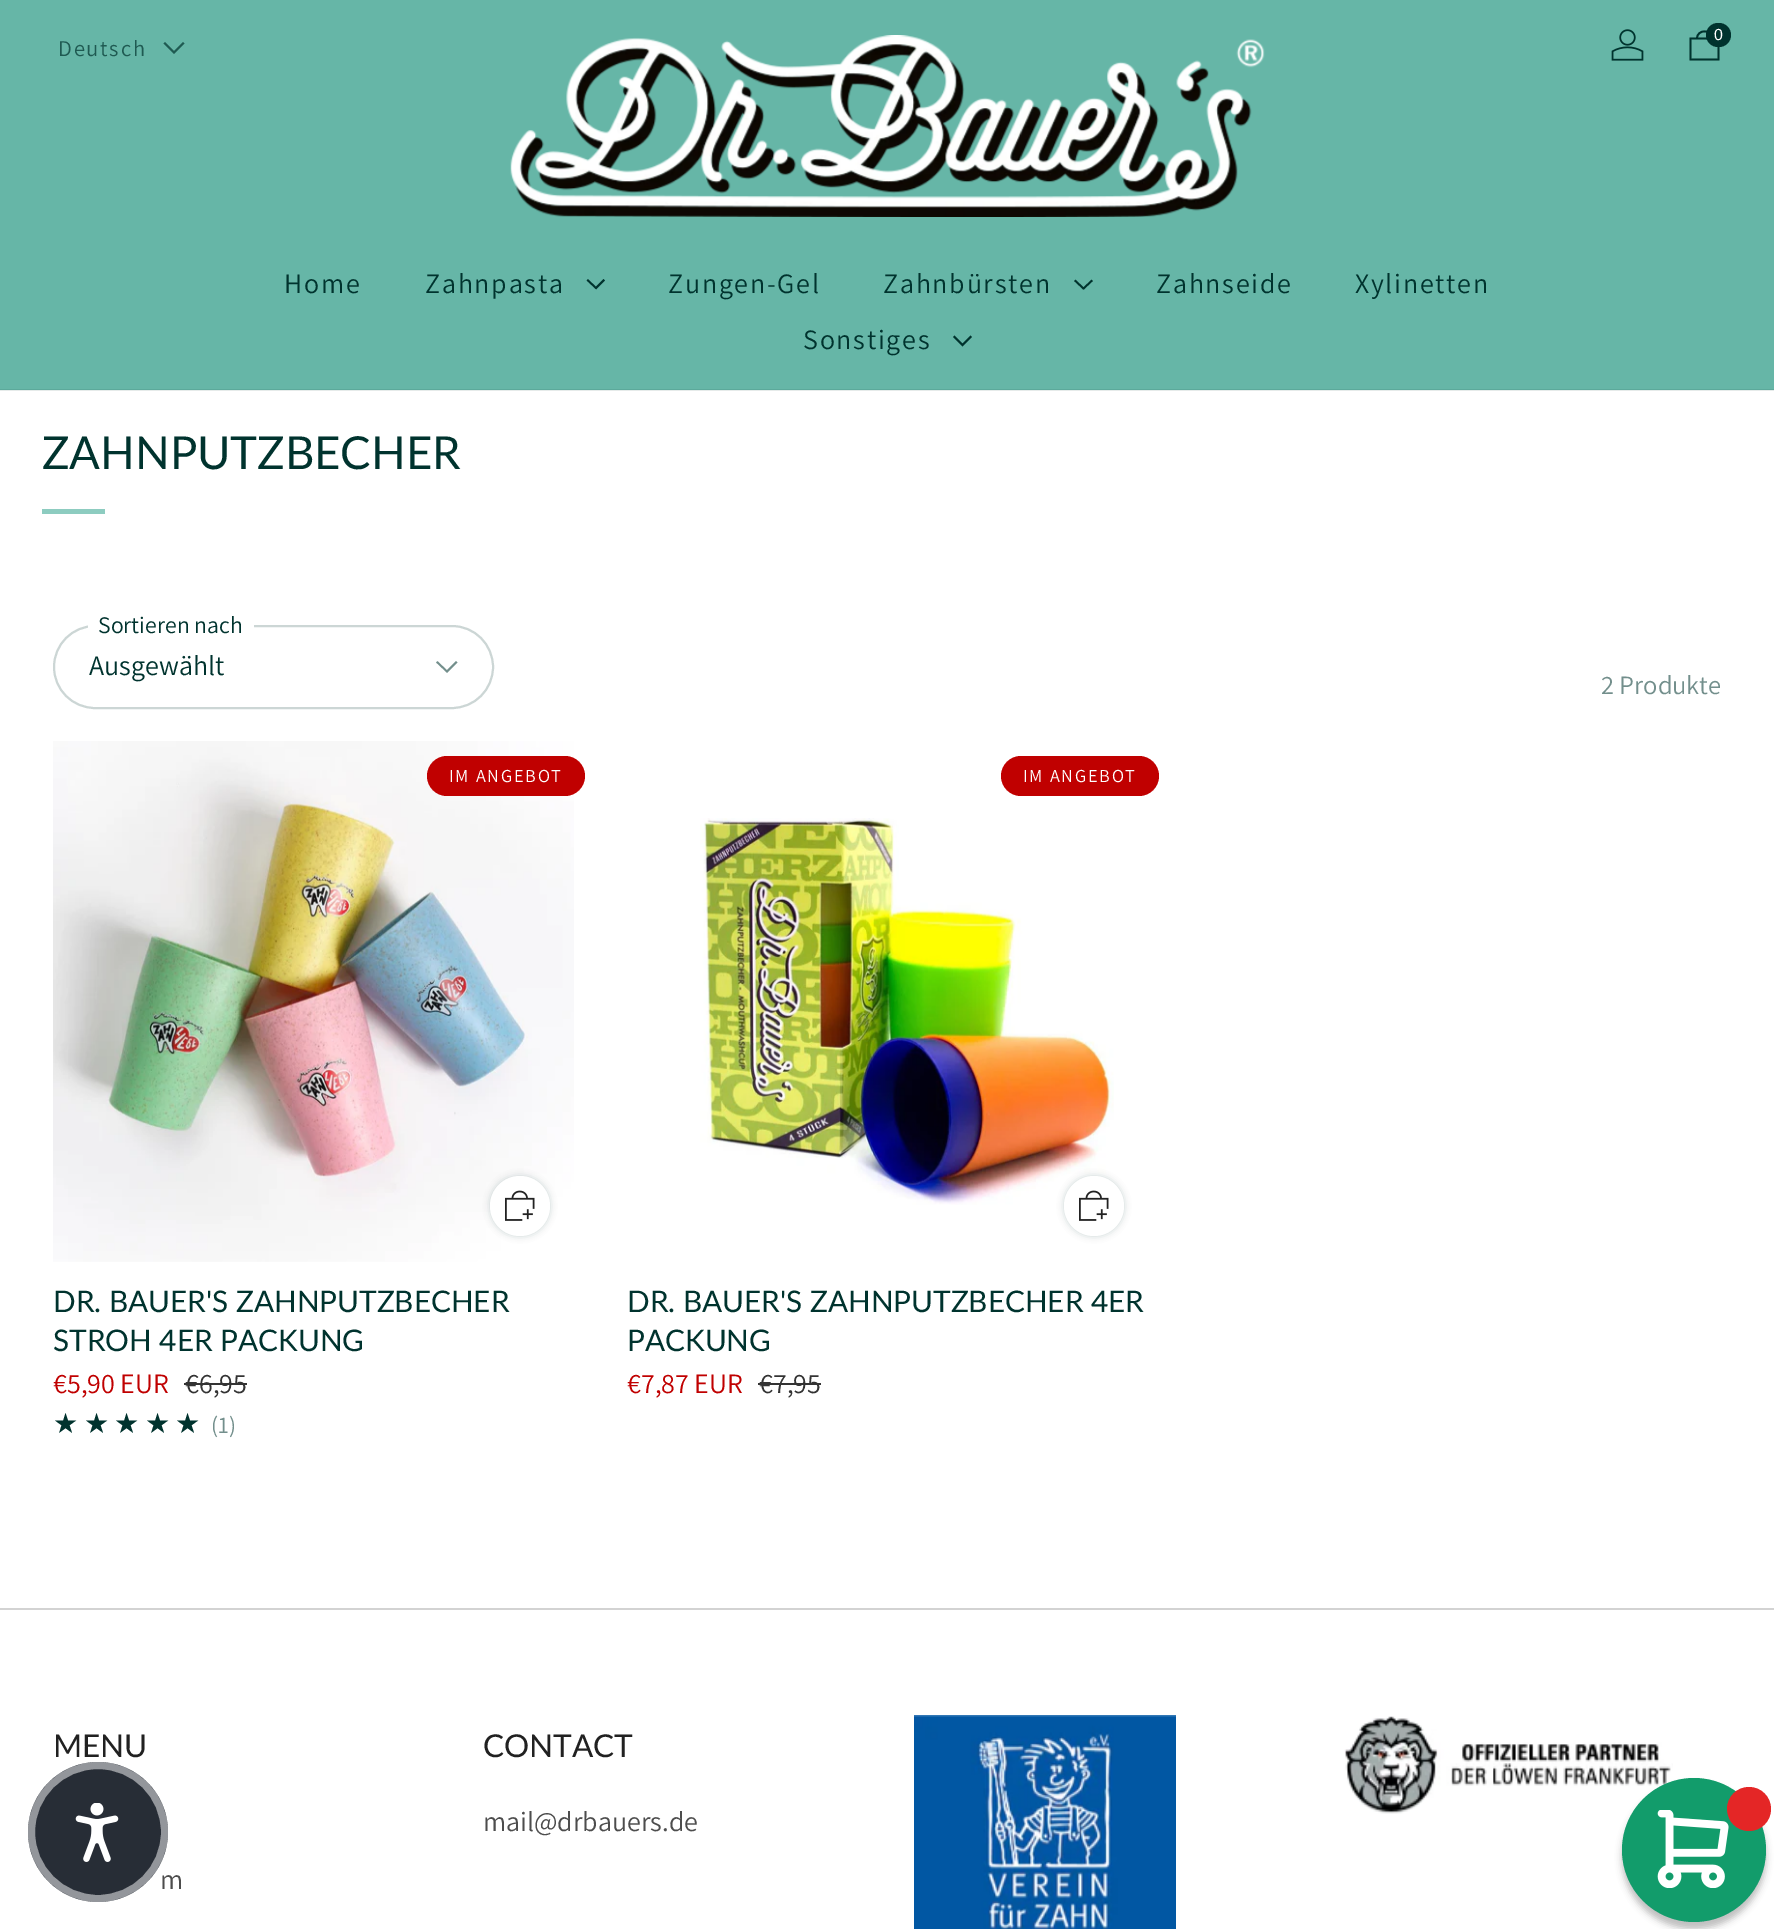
%!PS
<< /PageSize [1774 1929] /PageUsesTransparency true >> setpagedevice
/rgb { dup -16 bitshift 255 div exch dup -8 bitshift 255 and 255 div exch 255 and 255 div setrgbcolor } def
/font { [ exch dup neg 0 0 3 -1 roll 0 0 ] selectfont } def
/text { moveto show } def
/alpha { dup .setfillconstantalpha .setstrokeconstantalpha } def
/circle { newpath 0 360 arc closepath } def
/roundrect { 5 dict begin { /r /h /w /y /x } { exch def } forall
  x r add y moveto x w add y 2 copy h add r arct x w add y h add x 1 index r arct
  x y h add x y r arct x y 2 copy exch w add exch r arct closepath end } def
/shadow { 12 dict begin { /a /b /q /h /w /y /x } { exch def } forall gsave /was 0 def
  9 -2 -9 { dup b mul 4 div /e exch def 1 sub .425 mul 2.718 exch exp 1 add a .99 .min exch div /now exch def
    1 1 now sub 1 was sub div sub alpha /was now def
    w h .min e 2 mul add 0 gt { x e sub y e sub w e 2 mul add h e 2 mul add
      q e add b .6 mul add w h .min 2 div e add .min 0 .max roundrect fill } if } for grestore end } def
/picture { 5 dict begin { /h /w /y /x /name } { exch def } forall
  gsave x y translate w h scale
  w h 8 [w 0 0 h 0 0] name (r) file false 3 colorimage grestore end } def
0 .pushpdf14devicefilter
0 1929 translate 1 -1 scale
4 setmiterlimit
/s1 { /LiberationSans-Regular 16 font 16#FFFFFF rgb } def
/s2 { /Lato-Regular 45.5 font 16#00332E rgb } def
/s3 { /Assistant-Regular 23.75 font 16#00332E rgb } def
/s4 { /Assistant-Regular 28 font 16#00332E rgb } def
/s5 { /Assistant-Regular 26.5 font 16#738F8C rgb } def
/s6 { /Lato-Regular 29.75 font 16#00332E rgb } def
/s7 { /Assistant-Regular 28 font 16#C00000 rgb } def
/s8 { /Assistant-Regular 28 font 16#333333 rgb } def
/s9 { /Assistant-Regular 23.75 font 16#738F8C rgb } def
/s10 { /Lato-Regular 31.5 font 16#212121 rgb } def
/s11 { /Assistant-Regular 28 font 16#4D4D4D rgb } def
16#FFFFFF rgb
0 0 1774 1929 rectfill
16#E6EBEA rgb
0 390 1774 1 rectfill
16#66B6A7 rgb
0 0 1774 389 rectfill
16#5CA99B rgb
0 389 1774 1 rectfill
(pic1.raw) 1611 29 33 32 picture
16#00332E rgb
1.8 setlinewidth
1712 38.5 moveto 1712 29 1697 29 1697 38.5 curveto 1690.5 38.5 moveto 1718.5 38.5 lineto 1718.5 59.5 lineto 1690.5 59.5 lineto closepath stroke
1706 23 25 24 12 roundrect fill
s1
(0) 1714 40 text
/Assistant-Regular 22.5 font
16#1F5A52 rgb
58 56 moveto 1.75 0 (Deutsch) ashow
2 setlinecap
183 43.5 moveto 174 52.5 lineto 165 43.5 lineto stroke
/Assistant-Regular 28 font
16#00332E rgb
284 293 moveto 1.75 0 (Home) ashow
425 293 moveto 1.75 0 (Zahnpasta) ashow
603.5 280.5 moveto 596 288 lineto 588 280.5 lineto stroke
668 293 moveto 1.75 0 (Zungen-Gel) ashow
883 293 moveto 1.75 0 (Zahnbürsten) ashow
1091.5 281 moveto 1083.5 288.5 lineto 1075.5 281 lineto stroke
1156 293 moveto 1.75 0 (Zahnseide) ashow
1355 293 moveto 1.75 0 (Xylinetten) ashow
803 349 moveto 1.75 0 (Sonstiges) ashow
970.5 337 moveto 962.5 345 lineto 954.5 337 lineto stroke
(pic2.raw) 510 35 755 182 picture
s2
(ZAHNPUTZBECHER) 42 469 text
16#8DCCC0 rgb
42 509 63 5 rectfill
16#CCD6D5 rgb
2 setlinewidth
0 setlinecap
54 626 439 82 41 roundrect stroke
16#FFFFFF rgb
88 625 166 3 rectfill
s3
(Sortieren nach) 98 633 text
s4
(Ausgewählt) 89 675 text
16#738F8C rgb
1.8 setlinewidth
2 setlinecap
456 662.5 moveto 447 671.5 lineto 437.5 662.5 lineto stroke
s5
(2 Produkte) 1601 694 text
(pic3.raw) 53 741 521 521 picture
16#00332E rgb
490 1176 60 60 30 3.5 0.2 shadow
16#FFFFFF rgb
520 1206 30 circle fill
(pic4.raw) 505 1190 30 31 picture
16#C00000 rgb
427 756 158 40 20 roundrect fill
/Assistant-Regular 18.25 font
16#FFFFFF rgb
449 782 moveto 1.75 0 (IM ANGEBOT) ashow
s6
(DR. BAUER'S ZAHNPUTZBECHER) 53 1312 text
(STROH 4ER PACKUNG) 53 1351 text
s7
(€5,90 EUR) 53 1393 text
s8
(€6,95) 185 1393 text
184 1383 63 2 rectfill
/DejaVuSans-Regular 28 font
16#00332E rgb
53 1433 moveto 5.5 0 (★★★★★) ashow
s9
(\(1\)) 211 1433 text
16#C00000 rgb
1001 756 158 40 20 roundrect fill
/Assistant-Regular 18.25 font
16#FFFFFF rgb
1023 782 moveto 1.75 0 (IM ANGEBOT) ashow
(pic5.raw) 700 818 414 387 picture
16#00332E rgb
1064 1176 60 60 30 3.5 0.2 shadow
16#FFFFFF rgb
1094 1206 30 circle fill
(pic4.raw) 1079 1190 30 31 picture
s6
(DR. BAUER'S ZAHNPUTZBECHER 4ER) 627 1312 text
(PACKUNG) 627 1351 text
s7
(€7,87 EUR) 627 1393 text
s8
(€7,95) 759 1393 text
758 1383 63 2 rectfill
16#D3D3D3 rgb
0 1608 1774 2 rectfill
s10
(MENU) 53 1757 text
s11
(m) 160 1889 text
s10
(CONTACT) 483 1757 text
s11
(mail@drbauers.de) 483 1831 text
(pic6.raw) 914 1715 262 214 picture
(pic7.raw) 1344 1716 329 98 picture
16#272D36 rgb
98 1832 70 circle fill
0.5 alpha
16#FFFFFF rgb
7 setlinewidth
0 setlinecap
98 1832 66.5 circle stroke
1 alpha
(pic8.raw) 75 1803 44 59 picture
16#000000 rgb
1622 1785 144 144 72 3.5 0.25 shadow
16#129C6B rgb
1694 1850 72 circle fill
16#E42626 rgb
1749 1809 22 circle fill
(pic9.raw) 1657 1810 72 78 picture
.poppdf14devicefilter showpage
